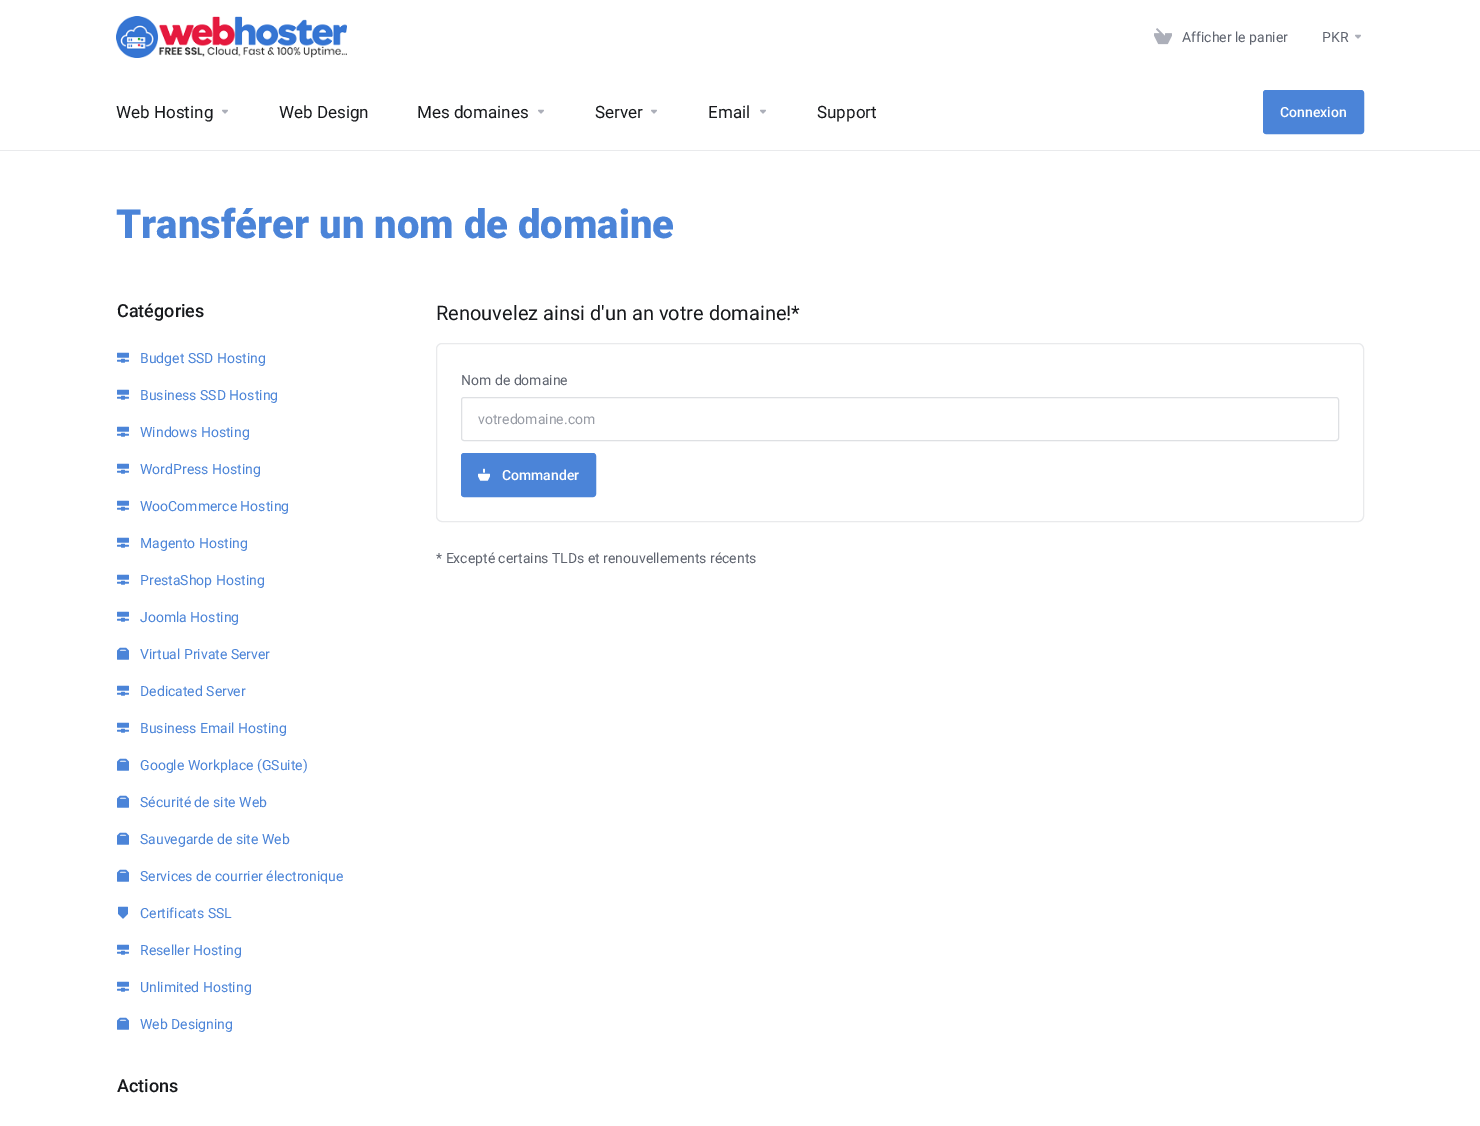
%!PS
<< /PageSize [1480 1126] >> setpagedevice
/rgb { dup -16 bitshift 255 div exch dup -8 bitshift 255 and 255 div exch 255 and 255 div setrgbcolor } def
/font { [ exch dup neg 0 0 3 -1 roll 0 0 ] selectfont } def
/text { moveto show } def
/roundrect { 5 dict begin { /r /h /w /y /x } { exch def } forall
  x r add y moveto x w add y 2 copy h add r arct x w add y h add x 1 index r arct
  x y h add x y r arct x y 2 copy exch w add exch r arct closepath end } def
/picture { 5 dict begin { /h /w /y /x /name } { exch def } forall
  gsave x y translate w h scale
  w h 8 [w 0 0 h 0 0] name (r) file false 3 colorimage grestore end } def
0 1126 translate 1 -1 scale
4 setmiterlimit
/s1 { /Roboto-Regular 14 font 16#5E636E rgb } def
/s2 { /Roboto-Regular 17 font 16#17191C rgb } def
/s3 { /Roboto-Medium 14 font 16#FFFFFF rgb } def
/s4 { /Roboto-Black 40 font 16#4B84D8 rgb } def
/s5 { /Roboto-Medium 18 font 16#17191C rgb } def
/s6 { /Roboto-Regular 14 font 16#4B84D8 rgb } def
/s7 { /Roboto-Regular 20 font 16#17191C rgb } def
/s8 { /Roboto-Regular 14 font 16#979BA4 rgb } def
16#FFFFFF rgb
0 0 1480 1126 rectfill
16#E9EAEC rgb
0 150 1480 1 rectfill
(pic1.raw) 116 16 231 42 picture
(pic2.raw) 1154 28 18 17 picture
s1
(Afficher le panier) 1182 42 text
(PKR) 1322 42 text
(pic3.raw) 1355 34 6 5 picture
s2
(Web Hosting) 116 118 text
(pic3.raw) 222 109 6 5 picture
(Web Design) 279 118 text
(Mes domaines) 417 118 text
(pic3.raw) 538 109 6 5 picture
(Server) 595 118 text
(pic3.raw) 651 109 6 5 picture
(Email) 708 118 text
(pic3.raw) 760 109 6 5 picture
(Support) 817 118 text
16#4B84D8 rgb
1263.5 90.5 100 43 2.5 roundrect gsave fill grestore
stroke
s3
(Connexion) 1280 117 text
s4
(Transférer un nom de domaine) 116 238 text
s5
(Catégories) 117 317 text
(pic4.raw) 117 352 12 11 picture
s6
(Budget SSD Hosting) 140 363 text
(pic4.raw) 117 389 12 11 picture
(Business SSD Hosting) 140 400 text
(pic4.raw) 117 426 12 11 picture
(Windows Hosting) 140 437 text
(pic4.raw) 117 463 12 11 picture
(WordPress Hosting) 140 474 text
(pic4.raw) 117 500 12 11 picture
(WooCommerce Hosting) 140 511 text
(pic4.raw) 117 537 12 11 picture
(Magento Hosting) 140 548 text
(pic4.raw) 117 574 12 11 picture
(PrestaShop Hosting) 140 585 text
(pic4.raw) 117 611 12 11 picture
(Joomla Hosting) 140 622 text
(pic5.raw) 117 647 12 13 picture
(Virtual Private Server) 140 659 text
(pic4.raw) 117 685 12 11 picture
(Dedicated Server) 140 696 text
(pic4.raw) 117 722 12 11 picture
(Business Email Hosting) 140 733 text
(pic5.raw) 117 758 12 13 picture
(Google Workplace \(GSuite\)) 140 770 text
(pic5.raw) 117 795 12 13 picture
(Sécurité de site Web) 140 807 text
(pic5.raw) 117 832 12 13 picture
(Sauvegarde de site Web) 140 844 text
(pic5.raw) 117 869 12 13 picture
(Services de courrier électronique) 140 881 text
(pic6.raw) 118 906 10 13 picture
(Certificats SSL) 140 918 text
(pic4.raw) 117 944 12 11 picture
(Reseller Hosting) 140 955 text
(pic4.raw) 117 981 12 11 picture
(Unlimited Hosting) 140 992 text
(pic5.raw) 117 1017 12 13 picture
(Web Designing) 140 1029 text
s5
(Actions) 117 1092 text
s7
(Renouvelez ainsi d'un an votre domaine!*) 436 320 text
16#E9EAEC rgb
436.5 343.5 927 178 5.5 roundrect stroke
s1
(Nom de domaine) 461 385 text
16#DEE0E3 rgb
461.5 397.5 877 43 2.5 roundrect stroke
s8
(votredomaine.com) 478 424 text
16#4B84D8 rgb
461.5 453.5 134 43 2.5 roundrect gsave fill grestore
stroke
(pic7.raw) 478 468 12 13 picture
s3
(Commander) 502 480 text
s1
(* Excepté certains TLDs et renouvellements récents) 436 563 text
showpage
